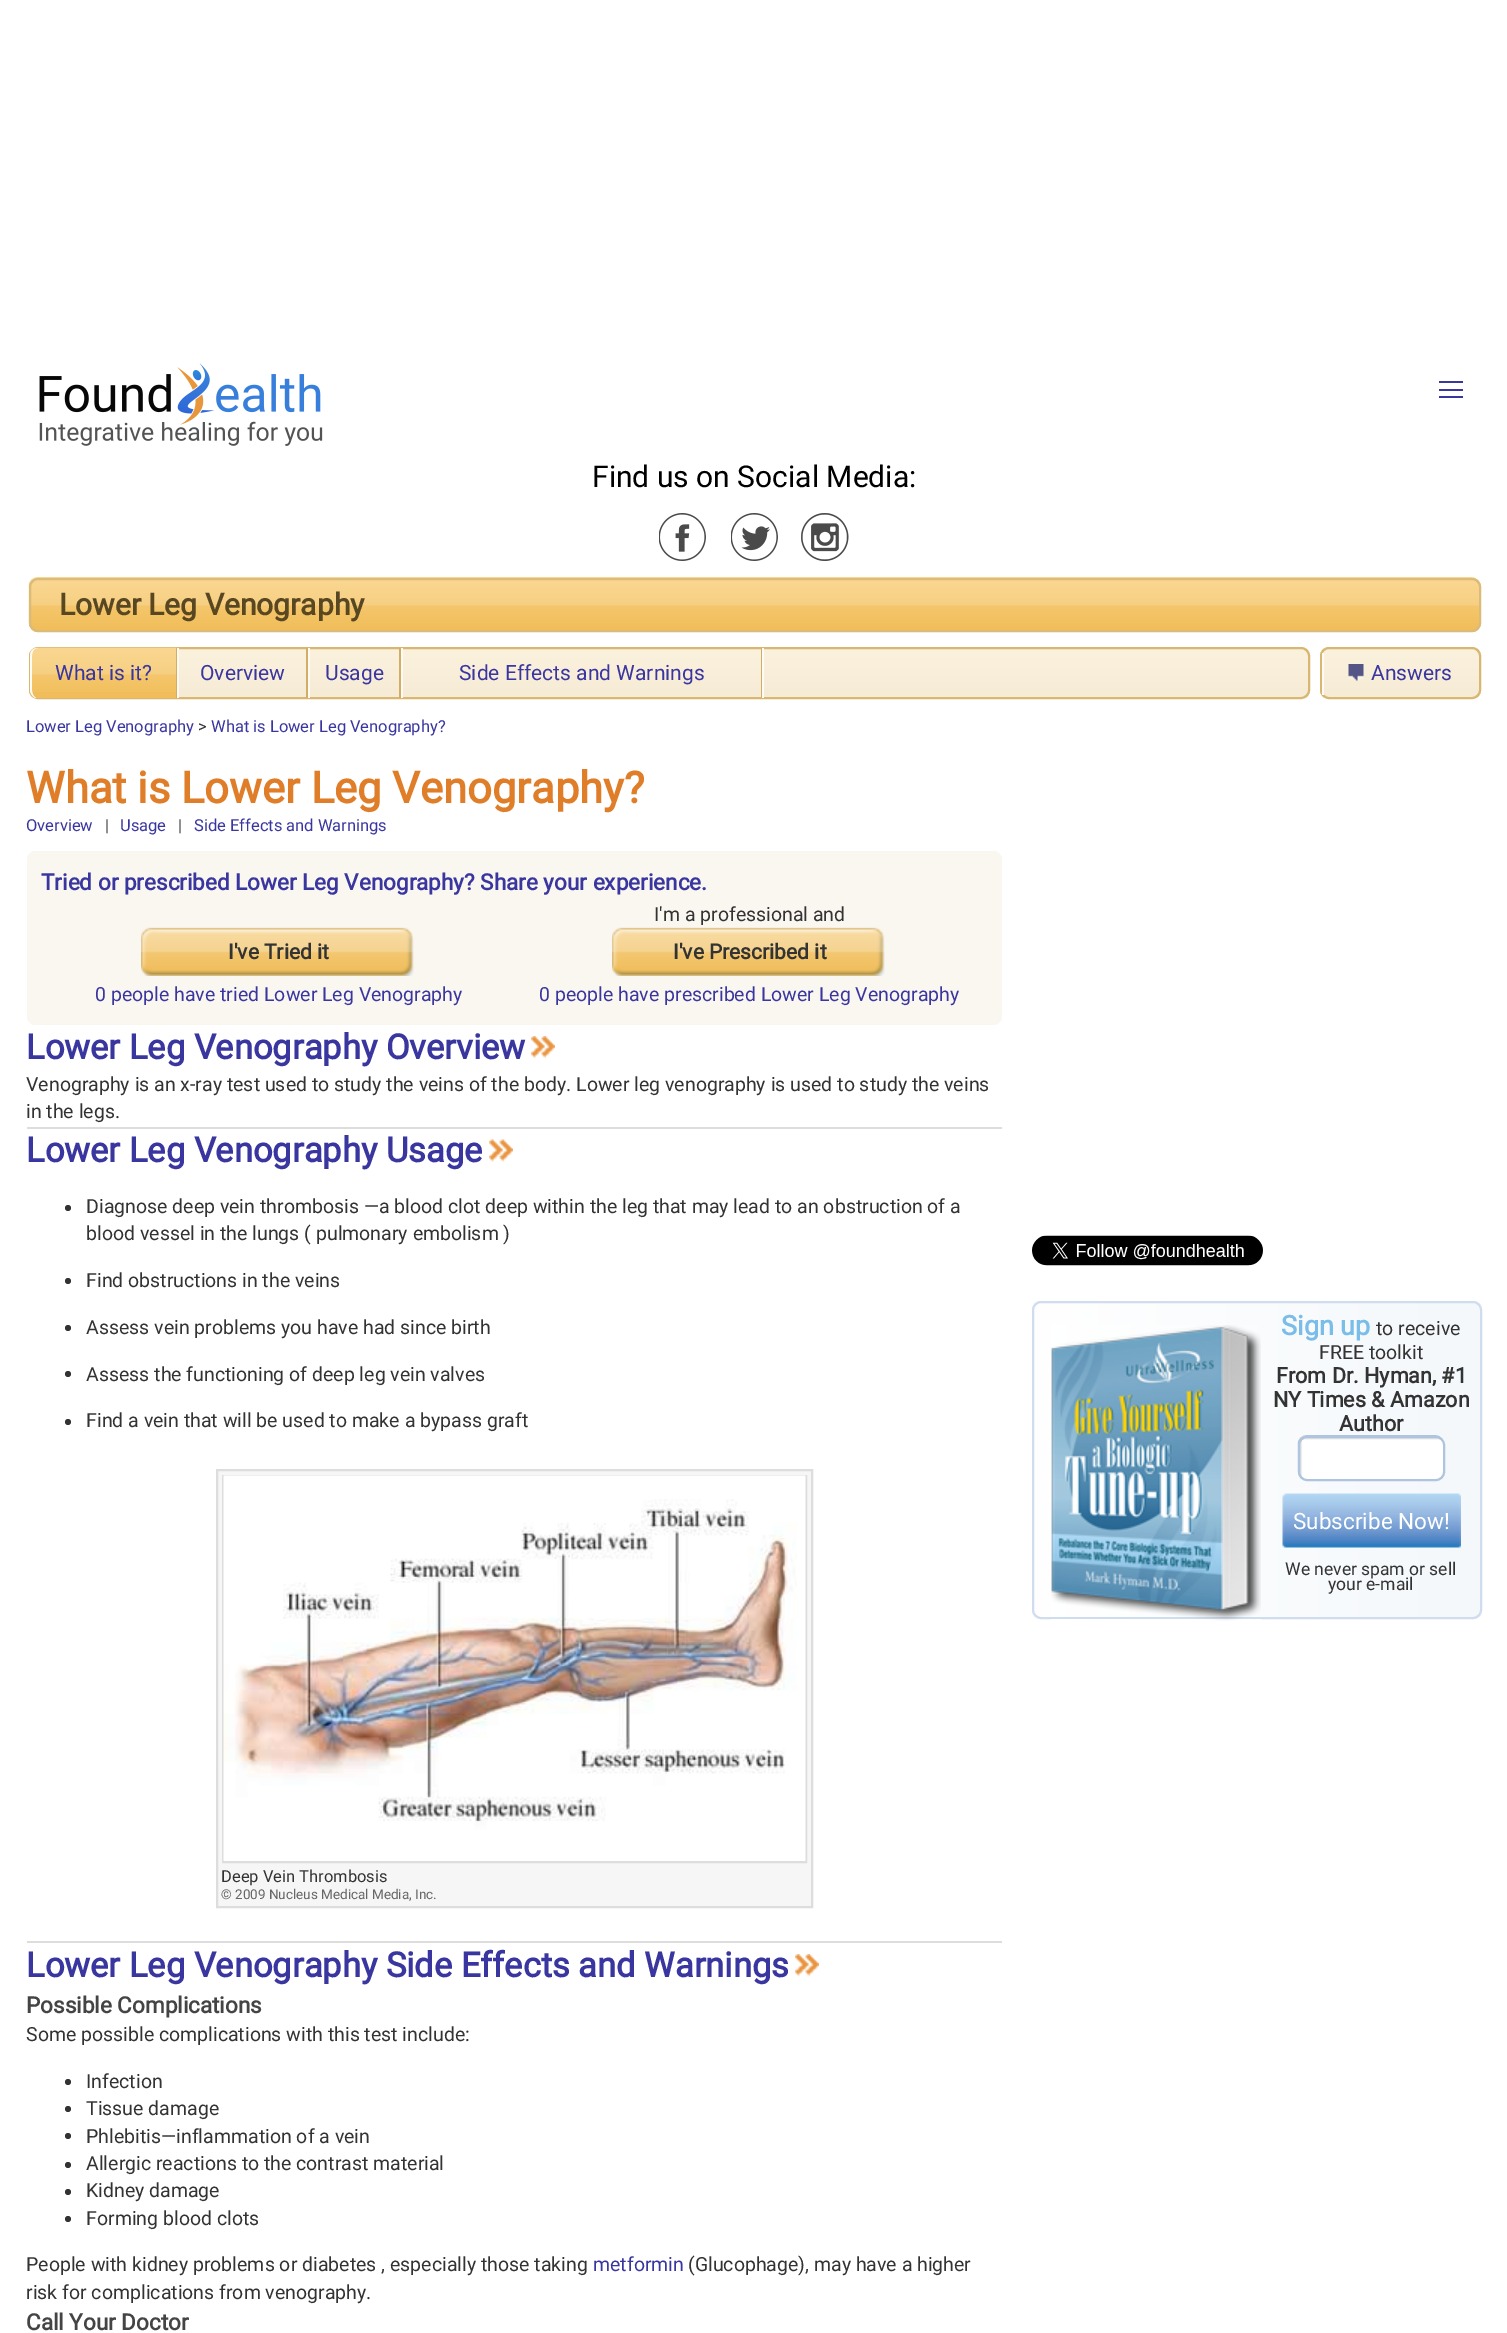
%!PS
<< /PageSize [1507 2333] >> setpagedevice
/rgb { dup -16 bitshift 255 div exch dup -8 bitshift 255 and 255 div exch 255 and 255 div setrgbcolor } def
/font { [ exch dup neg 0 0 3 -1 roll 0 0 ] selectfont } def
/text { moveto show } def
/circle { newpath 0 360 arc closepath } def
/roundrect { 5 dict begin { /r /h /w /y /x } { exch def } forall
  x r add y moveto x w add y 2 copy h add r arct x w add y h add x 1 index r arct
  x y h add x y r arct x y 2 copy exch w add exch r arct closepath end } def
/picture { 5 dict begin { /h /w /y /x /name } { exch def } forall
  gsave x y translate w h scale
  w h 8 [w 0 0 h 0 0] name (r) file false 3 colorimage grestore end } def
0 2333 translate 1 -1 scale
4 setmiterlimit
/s1 { /Roboto-Regular 30 font 16#000000 rgb } def
/s2 { /Roboto-Bold 30 font 16#594722 rgb } def
/s3 { /Roboto-Regular 21 font 16#3A36A0 rgb } def
/s4 { /Roboto-Regular 16.5 font 16#3A36A0 rgb } def
/s5 { /Roboto-Regular 16.5 font 16#333333 rgb } def
/s6 { /Roboto-Bold 43.5 font 16#E07D28 rgb } def
/s7 { /Roboto-Bold 22.5 font 16#3A36A0 rgb } def
/s8 { /Roboto-Bold 21 font 16#333333 rgb } def
/s9 { /Roboto-Regular 19.5 font 16#333333 rgb } def
/s10 { /Roboto-Regular 19.5 font 16#3A36A0 rgb } def
/s11 { /Roboto-Bold 34.5 font 16#3A36A0 rgb } def
/s12 { /Roboto-Regular 13.5 font 16#666666 rgb } def
/s13 { /Roboto-Bold 22.5 font 16#444444 rgb } def
/s14 { /Roboto-Bold 27 font 16#79BDE8 rgb } def
/s15 { /Roboto-Bold 21.5 font 16#333333 rgb } def
/s16 { /Roboto-Regular 22.5 font 16#FFFFFF rgb } def
/s17 { /Roboto-Regular 17.5 font 16#333333 rgb } def
16#FFFFFF rgb
0 0 1507 2333 rectfill
(pic1.raw) 39 363 284 83 picture
16#3A36A0 rgb
1439 381 24 2 rectfill
1439 389 24 2 rectfill
1439 396 24 2 rectfill
s1
(Find us on Social Media:) 592 487 text
(pic2.raw) 659 513 47 48 picture
(pic3.raw) 731 513 47 48 picture
(pic4.raw) 801 513 48 48 picture
16#F0BD5A rgb
29 578 1452 54 9 roundrect fill
(pic5.raw) 28 577 1453 52 picture
16#DBBB7A rgb
2 setlinewidth
30 579 1450 52 8 roundrect stroke
s2
(Lower Leg Venography) 59 615 text
gsave
29 647 1281 52 9 roundrect clip newpath
gsave 29 648 moveto 1310 648 lineto 1310 698 lineto 29 698 lineto closepath clip newpath
<< /ShadingType 2 /ColorSpace /DeviceRGB /Coords [30 648 30 698] /Extend [true true] /Function << /FunctionType 2 /Domain [0 1] /C0 [0.984 0.949 0.871] /C1 [0.965 0.922 0.835] /N 1 >> >> shfill grestore
grestore
16#D9B773 rgb
30 648 1279 50 8 roundrect stroke
16#F0BD5A rgb
38 648 moveto 177 648 lineto 177 698 lineto 38 698 lineto 33.5 698 30 694.5 30 690 curveto 30 656 lineto 30 651.5 33.5 648 38 648 curveto closepath fill
(pic6.raw) 30 647 147 45 picture
16#D1AD65 rgb
176 648 1 50 rectfill
16#FEFBF5 rgb
38 648 moveto 33 648 30 651 30 656 curveto 30 690 lineto 30 693 32 696 35 698 curveto 36 698 lineto 33 696 32 693 32 690 curveto 32 656 lineto 32 651 34 648 38 648 curveto closepath fill
s3
(What is it?) 55 680 text
16#D1AD65 rgb
306 648 2 50 rectfill
16#FEFBF5 rgb
177 648 2 50 rectfill
s3
(Overview) 200 680 text
16#D1AD65 rgb
399 648 2 50 rectfill
16#FEFBF5 rgb
308 648 2 50 rectfill
s3
(Usage) 325 680 text
16#D1AD65 rgb
761 648 1 50 rectfill
16#FEFBF5 rgb
401 648 2 50 rectfill
s3
(Side Effects and Warnings) 459 680 text
16#FEFBF5 rgb
762 648 2 50 rectfill
gsave
1320 647 161 52 9 roundrect clip newpath
gsave 1320 648 moveto 1481 648 lineto 1481 698 lineto 1320 698 lineto closepath clip newpath
<< /ShadingType 2 /ColorSpace /DeviceRGB /Coords [1322 648 1322 698] /Extend [true true] /Function << /FunctionType 2 /Domain [0 1] /C0 [0.984 0.949 0.871] /C1 [0.965 0.922 0.835] /N 1 >> >> shfill grestore
grestore
16#D9B773 rgb
1321 648 159 50 8 roundrect stroke
16#FEFBF5 rgb
1322 653 2 42 rectfill
(pic7.raw) 1348 664 16 17 picture
s3
(Answers) 1371 680 text
s4
(Lower Leg Venography) 26 732 text
s5
(>) 198 732 text
s4
(What is Lower Leg Venography?) 211 732 text
s6
(What is Lower Leg Venography?) 26 803 text
s4
(Overview) 26 831 text
s5
(|) 105 831 text
s4
(Usage) 120 831 text
s5
(|) 178 831 text
s4
(Side Effects and Warnings) 194 831 text
16#FAF6F0 rgb
27 851 975 174 9 roundrect fill
s7
(Tried or prescribed Lower Leg Venography? Share your experience.) 41 890 text
(pic8.raw) 141 927 273 49 picture
s8
(I've Tried it) 228 959 text
s9
(I'm a professional and) 654 921 text
(pic8.raw) 612 927 273 49 picture
s8
(I've Prescribed it) 673 959 text
s10
(0 people have tried Lower Leg Venography) 95 1001 text
(0 people have prescribed Lower Leg Venography) 539 1001 text
16#DDDDDD rgb
27 1127 975 2 rectfill
s11
(Lower Leg Venography Overview) 26 1059 text
(pic9.raw) 531 1036 24 23 picture
s9
(Venography is an x-ray test used to study the veins of the body. Lower leg venography is used to study the veins) 26 1091 text
(in the legs.) 26 1118 text
16#DDDDDD rgb
27 1941 975 2 rectfill
s11
(Lower Leg Venography Usage) 26 1162 text
(pic10.raw) 489 1139 24 23 picture
16#333333 rgb
68 1208 3 circle fill
s9
(Diagnose deep vein thrombosis —a blood clot deep within the leg that may lead to an obstruction of a) 86 1213 text
(blood vessel in the lungs \( pulmonary embolism \)) 86 1240 text
68 1281 3 circle fill
(Find obstructions in the veins) 86 1287 text
68 1328 3 circle fill
(Assess vein problems you have had since birth) 86 1334 text
68 1374 3 circle fill
(Assess the functioning of deep leg vein valves) 86 1381 text
68 1422 3 circle fill
(Find a vein that will be used to make a bypass graft) 86 1427 text
16#F6F6F6 rgb
217 1470 moveto 812 1470 lineto 812 1907 lineto 217 1907 lineto closepath gsave fill grestore
16#DDDDDD rgb
stroke
223 1476 583 386 rectstroke
(pic11.raw) 223 1475 583 386 picture
s5
(Deep Vein Thrombosis) 221 1882 text
s12
(© 2009 Nucleus Medical Media, Inc.) 221 1899 text
s11
(Lower Leg Venography Side Effects and Warnings) 26 1977 text
(pic12.raw) 795 1954 24 23 picture
s13
(Possible Complications) 26 2013 text
s9
(Some possible complications with this test include:) 26 2041 text
68 2082 3 circle fill
(Infection) 86 2088 text
68 2109 3 circle fill
(Tissue damage) 86 2115 text
68 2136 3 circle fill
(Phlebitis—inflammation of a vein) 86 2143 text
68 2165 3 circle fill
(Allergic reactions to the contrast material) 86 2170 text
68 2192 3 circle fill
(Kidney damage) 86 2197 text
68 2219 3 circle fill
(Forming blood clots) 86 2225 text
(People with kidney problems or diabetes , especially those taking) 26 2271 text
s10
(metformin) 593 2271 text
s9
(\(Glucophage\), may have a higher) 688 2271 text
(risk for complications from venography.) 26 2299 text
s13
(Call Your Doctor) 26 2330 text
(pic13.raw) 1032 1235 231 31 picture
gsave
1032 1301 450 318 9 roundrect clip newpath
gsave 1034 1301 moveto 1481 1301 lineto 1481 1619 lineto 1034 1619 lineto closepath clip newpath
<< /ShadingType 2 /ColorSpace /DeviceRGB /Coords [1034 1302 1481 1302] /Extend [true true] /Function << /FunctionType 2 /Domain [0 1] /C0 [1 1 1] /C1 [0.957 0.973 0.984] /N 1 >> >> shfill grestore
grestore
16#CFDDEF rgb
1033 1302 448 316 8 roundrect stroke
(pic14.raw) 1051 1325 210 296 picture
s14
(Sign up) 1281 1335 text
s9
(to receive) 1376 1335 text
(FREE toolkit) 1319 1359 text
s15
(From Dr. Hyman, #1) 1276 1383 text
(NY Times & Amazon) 1273 1407 text
(Author) 1339 1431 text
16#FFFFFF rgb
1298 1436 147 45 9 roundrect fill
(pic15.raw) 1297 1435 146 43 picture
16#AFC4DE rgb
1299 1437 145 43 8 roundrect stroke
(pic16.raw) 1282 1493 179 55 picture
s16
(Subscribe Now!) 1293 1529 text
s17
(We never spam or sell) 1285 1575 text
(your e-mail) 1328 1590 text
showpage
